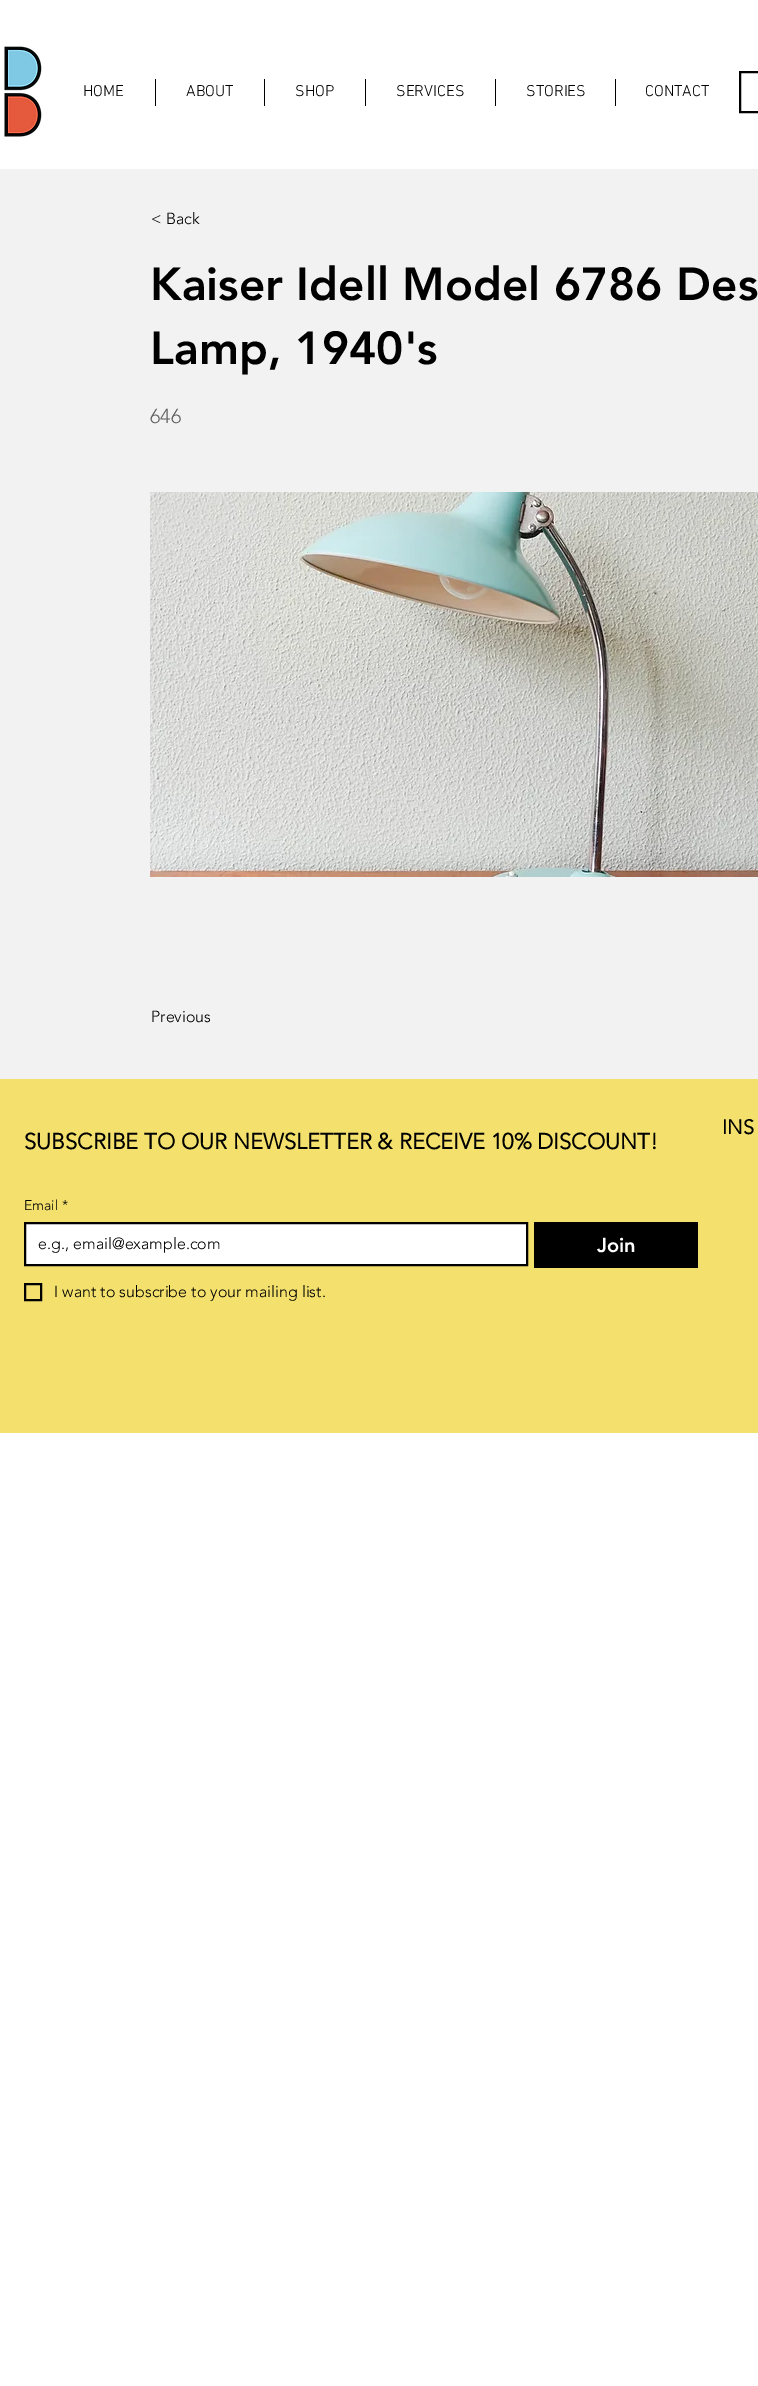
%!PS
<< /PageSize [758 2386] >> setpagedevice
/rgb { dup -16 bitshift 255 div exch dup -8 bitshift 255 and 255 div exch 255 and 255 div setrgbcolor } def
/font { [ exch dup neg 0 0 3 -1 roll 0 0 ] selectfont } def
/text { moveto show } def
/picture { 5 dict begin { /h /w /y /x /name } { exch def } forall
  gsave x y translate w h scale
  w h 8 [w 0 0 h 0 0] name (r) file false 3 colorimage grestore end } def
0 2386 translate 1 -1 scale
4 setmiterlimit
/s1 { /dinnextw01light-Light 16 font 16#000000 rgb } def
/s2 { /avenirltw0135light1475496-Light 16 font 16#000000 rgb } def
/s3 { /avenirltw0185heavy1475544-Black 46 font 16#000000 rgb } def
/s4 { /avenirltw0135light1475496-Light 20 font 16#616060 rgb } def
/s5 { /avenirltw0135light1475496-Bold 20 font 16#000000 rgb } def
/s6 { /avenirltw0135light1475496-Bold 22 font 16#000000 rgb } def
/s7 { /avenirltw0135light1475496-Light 14 font 16#000000 rgb } def
/s8 { /avenirltw0185heavy1475544-Black 20 font 16#FFFFFF rgb } def
16#FFFFFF rgb
0 0 758 2386 rectfill
(pic1.raw) 4 46 38 91 picture
s1
(HOME) 83 96 text
155 79 1 27 rectfill
(ABOUT) 186 96 text
264 79 1 27 rectfill
(SHOP) 295 96 text
365 79 1 27 rectfill
(SERVICES) 396 96 text
495 79 1 27 rectfill
(STORIES) 526 96 text
615 79 1 27 rectfill
(CONTACT) 645 96 text
2 setlinewidth
740 72 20 40 rectstroke
16#F3F2F2 rgb
0 169 758 910 rectfill
s2
(< Back) 151 224 text
s3
(Kaiser Idell Model 6786 Des) 150 300 text
(Lamp, 1940's) 150 364 text
s4
(646) 150 423 text
(pic2.raw) 150 492 608 385 picture
s2
(Previous) 151 1022 text
16#F4E16D rgb
0 1079 758 354 rectfill
s5
(INS) 722 1134 text
s6
(SUBSCRIBE TO OUR NEWSLETTER & RECEIVE 10% DISCOUNT!) 24 1149 text
s7
(Email) 24 1210 text
(*) 62 1210 text
16#FFFFFF rgb
25 1223 moveto 527 1223 lineto 527 1265 lineto 25 1265 lineto closepath gsave fill grestore
16#000000 rgb
stroke
s2
(e.g., email@example.com) 38 1249 text
534 1222 164 46 rectfill
s8
(Join) 597 1252 text
16#000000 rgb
25 1284 16 16 rectstroke
s2
(I want to subscribe to your mailing list.) 54 1297 text
showpage
